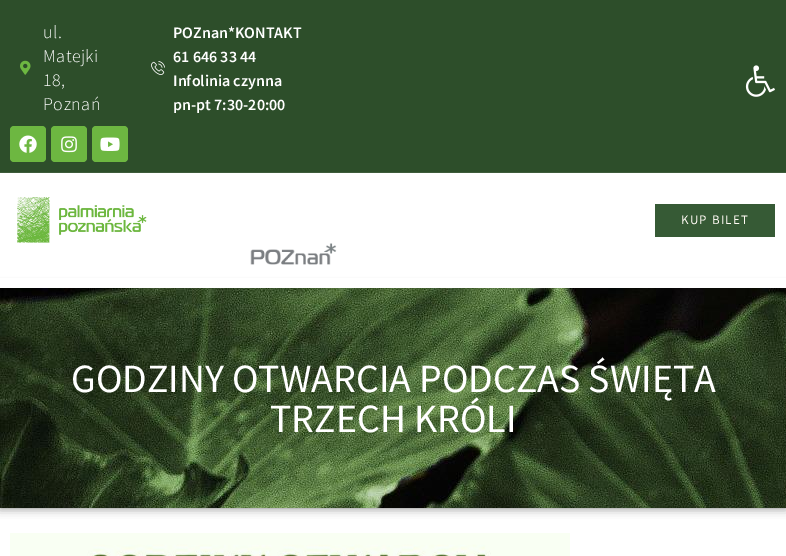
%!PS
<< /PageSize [786 556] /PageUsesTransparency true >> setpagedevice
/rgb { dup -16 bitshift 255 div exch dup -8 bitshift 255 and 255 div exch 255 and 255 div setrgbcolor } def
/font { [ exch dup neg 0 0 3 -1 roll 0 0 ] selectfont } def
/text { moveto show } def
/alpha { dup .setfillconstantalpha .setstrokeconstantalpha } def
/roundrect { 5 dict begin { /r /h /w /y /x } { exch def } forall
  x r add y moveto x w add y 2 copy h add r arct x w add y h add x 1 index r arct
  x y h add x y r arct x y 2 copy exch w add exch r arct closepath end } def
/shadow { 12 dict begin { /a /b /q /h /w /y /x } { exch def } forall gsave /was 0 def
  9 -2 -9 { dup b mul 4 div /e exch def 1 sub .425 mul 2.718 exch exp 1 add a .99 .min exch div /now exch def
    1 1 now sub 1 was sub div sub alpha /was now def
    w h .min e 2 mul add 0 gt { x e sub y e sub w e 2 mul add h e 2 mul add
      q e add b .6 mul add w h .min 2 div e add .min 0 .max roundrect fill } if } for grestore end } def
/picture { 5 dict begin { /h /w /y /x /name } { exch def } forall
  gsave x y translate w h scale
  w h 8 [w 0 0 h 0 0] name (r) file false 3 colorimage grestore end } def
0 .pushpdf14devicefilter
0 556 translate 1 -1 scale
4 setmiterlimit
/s1 { /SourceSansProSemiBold-SemiBold 16 font 16#FFFFFF rgb } def
/s2 { /SourceSansPro-Regular 40 font 16#FFFFFF rgb } def
16#FFFFFF rgb
0 0 786 556 rectfill
16#2D4E2A rgb
0 0 786 172 rectfill
16#3E5C3B rgb
0 172 786 1 rectfill
(pic1.raw) 20 60 11 15 picture
/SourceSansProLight-Light 18 font
16#FFFFFF rgb
43 38 moveto 0.5 0 (ul.) ashow
43 62 moveto 0.5 0 (Matejki) ashow
43 86 moveto 0.5 0 (18,) ashow
43 110 moveto 0.5 0 (Poznań) ashow
(pic2.raw) 151 61 14 14 picture
s1
(POZnan*KONTAKT) 173 38 text
(61 646 33 44) 173 62 text
(Infolinia czynna) 173 86 text
(pn-pt 7:30-20:00) 173 110 text
16#6DB741 rgb
10 126 36 36 4 roundrect fill
(pic3.raw) 19 135 18 18 picture
51 126 36 36 4 roundrect fill
(pic4.raw) 61 136 16 17 picture
92 126 36 36 4 roundrect fill
(pic5.raw) 100 137 20 14 picture
16#000000 rgb
0 288 786 220 0 5 0.5 shadow
16#FFFFFF rgb
0 278 786 10 rectfill
(pic6.raw) 17 197 130 46 picture
16#365A35 rgb
655 204 120 33 rectfill
/SourceSans3-Regular 13 font
16#FFFAF4 rgb
681 224 moveto 1.25 0 (KUP BILET) ashow
(pic7.raw) 250 243 87 22 picture
(pic8.raw) 745 65 30 32 picture
(pic9.raw) 0 288 786 220 picture
s2
(GODZINY OTWARCIA PODCZAS ŚWIĘTA) 71 392 text
(TRZECH KRÓLI) 270 432 text
(pic10.raw) 10 533 560 23 picture
.poppdf14devicefilter showpage
